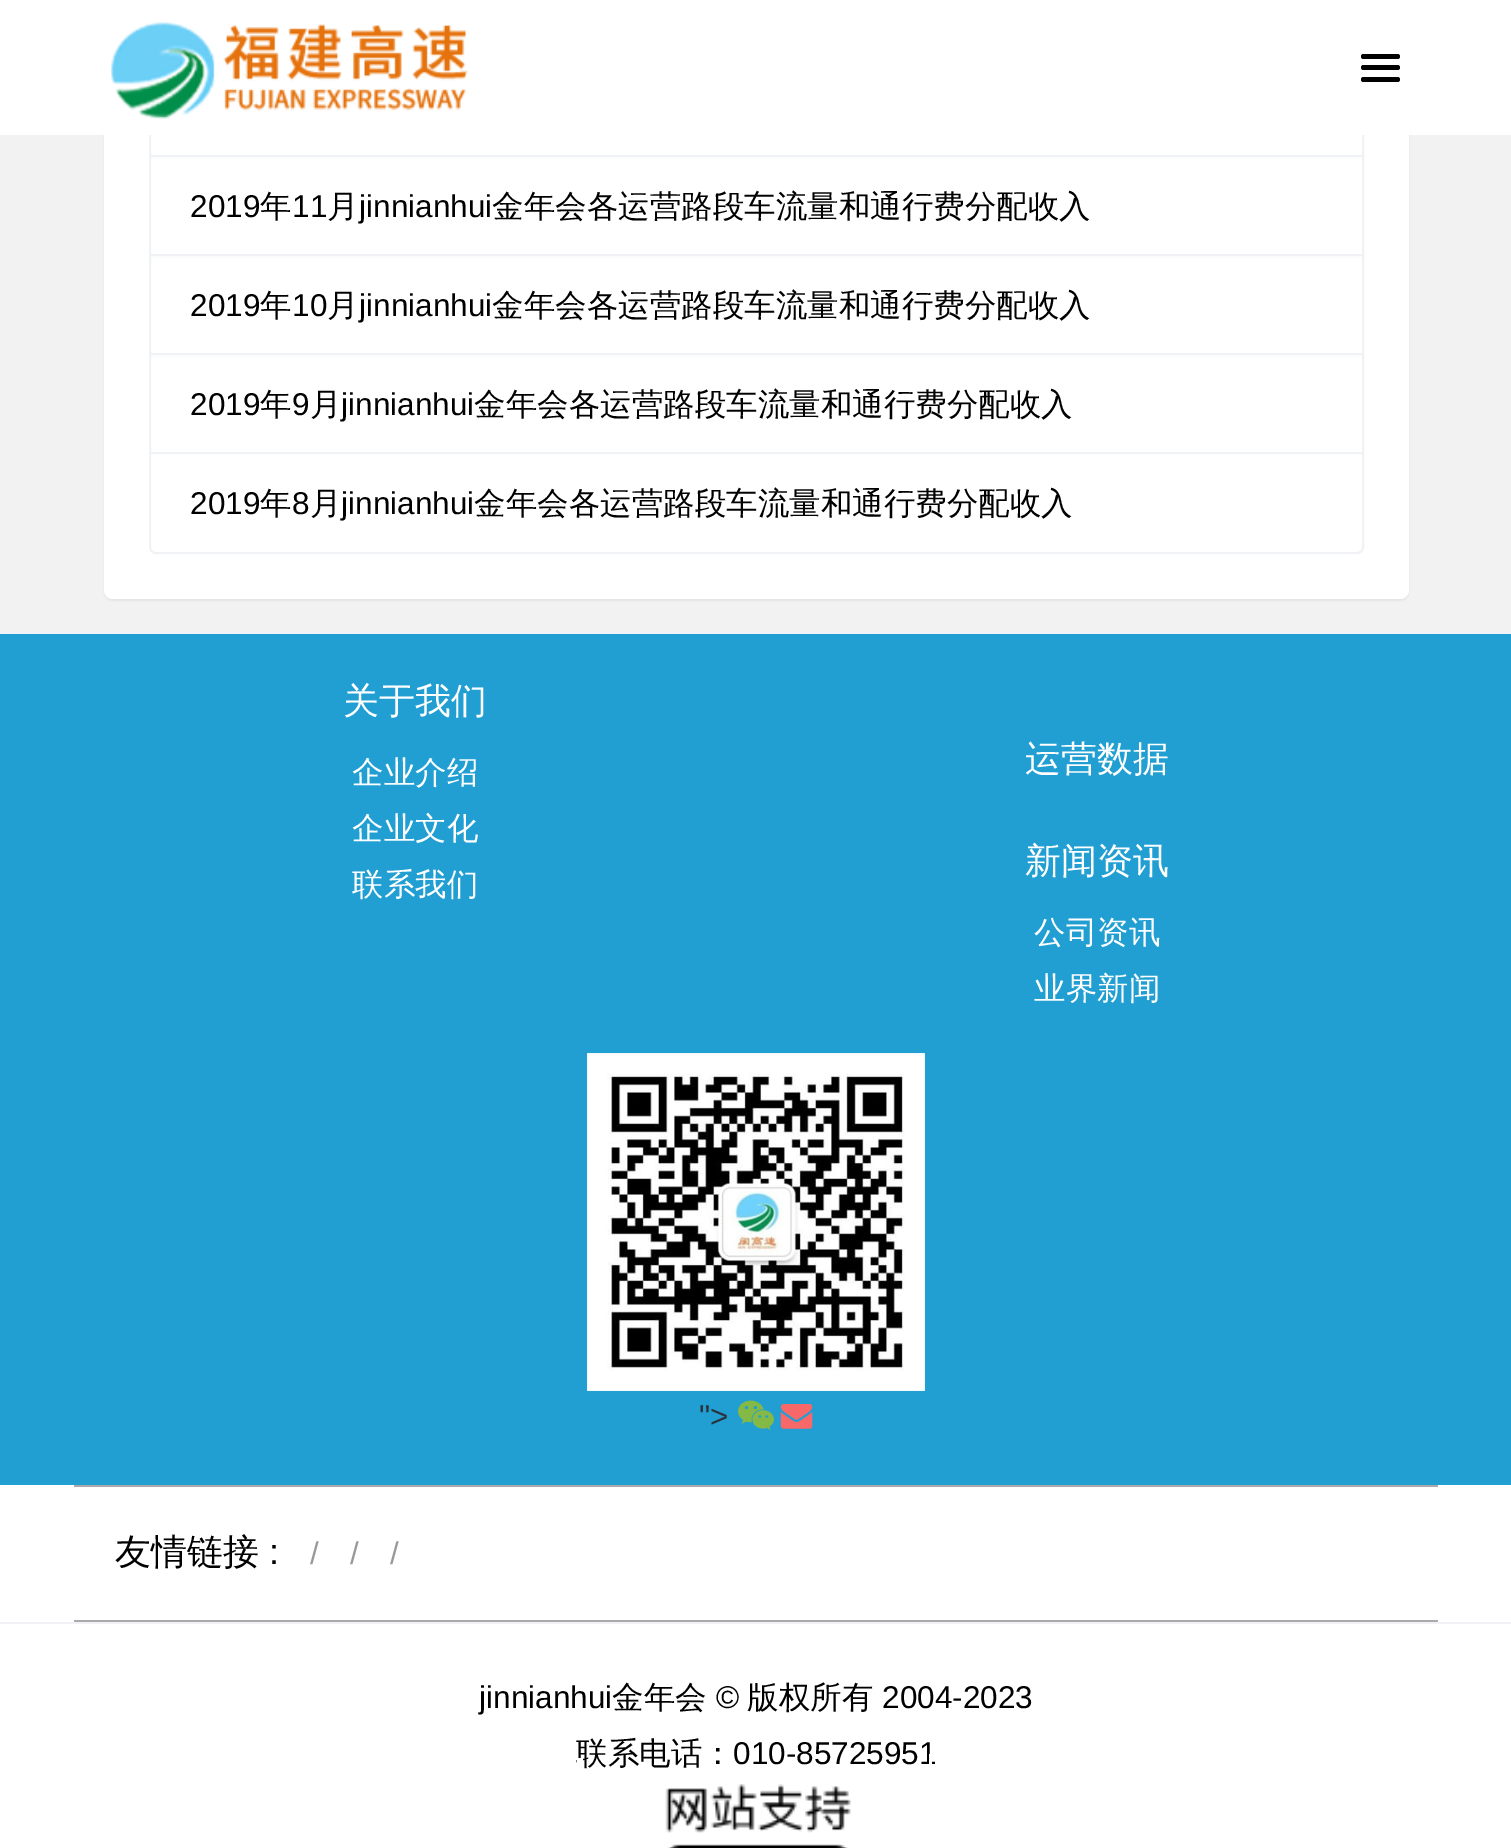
%!PS
<< /PageSize [1511 1848] /PageUsesTransparency true >> setpagedevice
/rgb { dup -16 bitshift 255 div exch dup -8 bitshift 255 and 255 div exch 255 and 255 div setrgbcolor } def
/font { [ exch dup neg 0 0 3 -1 roll 0 0 ] selectfont } def
/text { moveto show } def
/alpha { dup .setfillconstantalpha .setstrokeconstantalpha } def
/roundrect { 5 dict begin { /r /h /w /y /x } { exch def } forall
  x r add y moveto x w add y 2 copy h add r arct x w add y h add x 1 index r arct
  x y h add x y r arct x y 2 copy exch w add exch r arct closepath end } def
/shadow { 12 dict begin { /a /b /q /h /w /y /x } { exch def } forall gsave /was 0 def
  9 -2 -9 { dup b mul 4 div /e exch def 1 sub .425 mul 2.718 exch exp 1 add a .99 .min exch div /now exch def
    1 1 now sub 1 was sub div sub alpha /was now def
    w h .min e 2 mul add 0 gt { x e sub y e sub w e 2 mul add h e 2 mul add
      q e add b .6 mul add w h .min 2 div e add .min 0 .max roundrect fill } if } for grestore end } def
/picture { 5 dict begin { /h /w /y /x /name } { exch def } forall
  gsave x y translate w h scale
  w h 8 [w 0 0 h 0 0] name (r) file false 3 colorimage grestore end } def
0 .pushpdf14devicefilter
0 1848 translate 1 -1 scale
4 setmiterlimit
/s1 { /LiberationSans-Regular 31.5 font 16#000000 rgb } def
/s2 { /WenQuanYiZenHei-Medium 31.5 font 16#000000 rgb } def
/s3 { /WenQuanYiZenHei-Medium 36 font 16#FFFFFF rgb } def
/s4 { /WenQuanYiZenHei-Medium 31.5 font 16#FFFFFF rgb } def
/s5 { /LiberationSans-Regular 31.5 font 16#2A333C rgb } def
/s6 { /WenQuanYiZenHei-Medium 36 font 16#000000 rgb } def
/s7 { /LiberationSans-Regular 36 font 16#000000 rgb } def
/s8 { /LiberationSans-Regular 31.5 font 16#999999 rgb } def
16#FFFFFF rgb
0 0 1511 1848 rectfill
16#F2F2F2 rgb
0 135 1511 497 rectfill
16#000000 rgb
104 -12 1305 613 9 1 0.05 shadow
16#FFFFFF rgb
104 -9 1305 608 9 roundrect fill
16#F0F2F5 rgb
2 setlinewidth
150 57 1213 100 rectstroke
16#FFFFFF rgb
103 0 1307 135 rectfill
(pic1.raw) 111 22 357 97 picture
16#000000 rgb
1361 54 39 5 2.5 roundrect fill
1361 65 39 5 2.5 roundrect fill
1361 77 39 5 2.5 roundrect fill
16#FFFFFF rgb
151 157 1211 1 rectfill
16#F0F2F5 rgb
150 156 1213 100 rectstroke
s1
(2019) 190 217 text
s2
(年) 260 217 text
s1
(11) 292 217 text
s2
(月) 327 217 text
s1
(jinnianhui) 359 217 text
s2
(金年会各运营路段车流量和通行费分配收入) 492 217 text
16#FFFFFF rgb
151 256 1211 1 rectfill
16#F0F2F5 rgb
150 255 1213 100 rectstroke
s1
(2019) 190 316 text
s2
(年) 260 316 text
s1
(10) 292 316 text
s2
(月) 327 316 text
s1
(jinnianhui) 359 316 text
s2
(金年会各运营路段车流量和通行费分配收入) 492 316 text
16#FFFFFF rgb
151 355 1211 1 rectfill
16#F0F2F5 rgb
150 354 1213 100 rectstroke
s1
(2019) 190 415 text
s2
(年) 260 415 text
s1
(9) 292 415 text
s2
(月) 310 415 text
s1
(jinnianhui) 341 415 text
s2
(金年会各运营路段车流量和通行费分配收入) 474 415 text
16#FFFFFF rgb
150 453 moveto 1363 453 lineto 1363 547 lineto 1363 550.5 1360.5 553 1357 553 curveto 156 553 lineto 152.5 553 150 550.5 150 547 curveto closepath gsave fill grestore
16#F0F2F5 rgb
stroke
s1
(2019) 190 514 text
s2
(年) 260 514 text
s1
(8) 292 514 text
s2
(月) 310 514 text
s1
(jinnianhui) 341 514 text
s2
(金年会各运营路段车流量和通行费分配收入) 474 514 text
16#219FD2 rgb
0 634 1511 851 rectfill
16#F0F2F5 rgb
0 632 1511 2 rectfill
s3
(关于我们) 343 713 text
s4
(企业介绍) 352 783 text
(企业文化) 352 839 text
(联系我们) 352 895 text
s3
(运营数据) 1025 771 text
(新闻资讯) 1025 873 text
s4
(公司资讯) 1034 943 text
(业界新闻) 1034 999 text
(pic2.raw) 587 1053 338 338 picture
(pic3.raw) 587 1053 338 338 picture
s5
(">) 699 1427 text
(pic4.raw) 738 1400 36 30 picture
(pic5.raw) 780 1404 33 25 picture
16#AAAAAA rgb
74 1485 1364 2 rectfill
74 1620 1364 2 rectfill
s6
(友情链接) 115 1564 text
s7
(:) 269 1564 text
s8
(/) 310 1564 text
(/) 350 1564 text
(/) 390 1564 text
16#F0F2F5 rgb
0 1622 1511 2 rectfill
s1
(jinnianhui) 479 1708 text
s2
(金年会) 612 1708 text
s1
(©) 716 1708 text
s2
(版权所有) 747 1708 text
s1
(2004-2023) 882 1708 text
s2
(联系电话：) 576 1764 text
s1
(010-85725951) 733 1764 text
(pic6.raw) 665 1784 186 64 picture
16#FFFFFF rgb
577 1758 6 5 rectfill
929 1754 3 10 rectfill
.poppdf14devicefilter showpage
